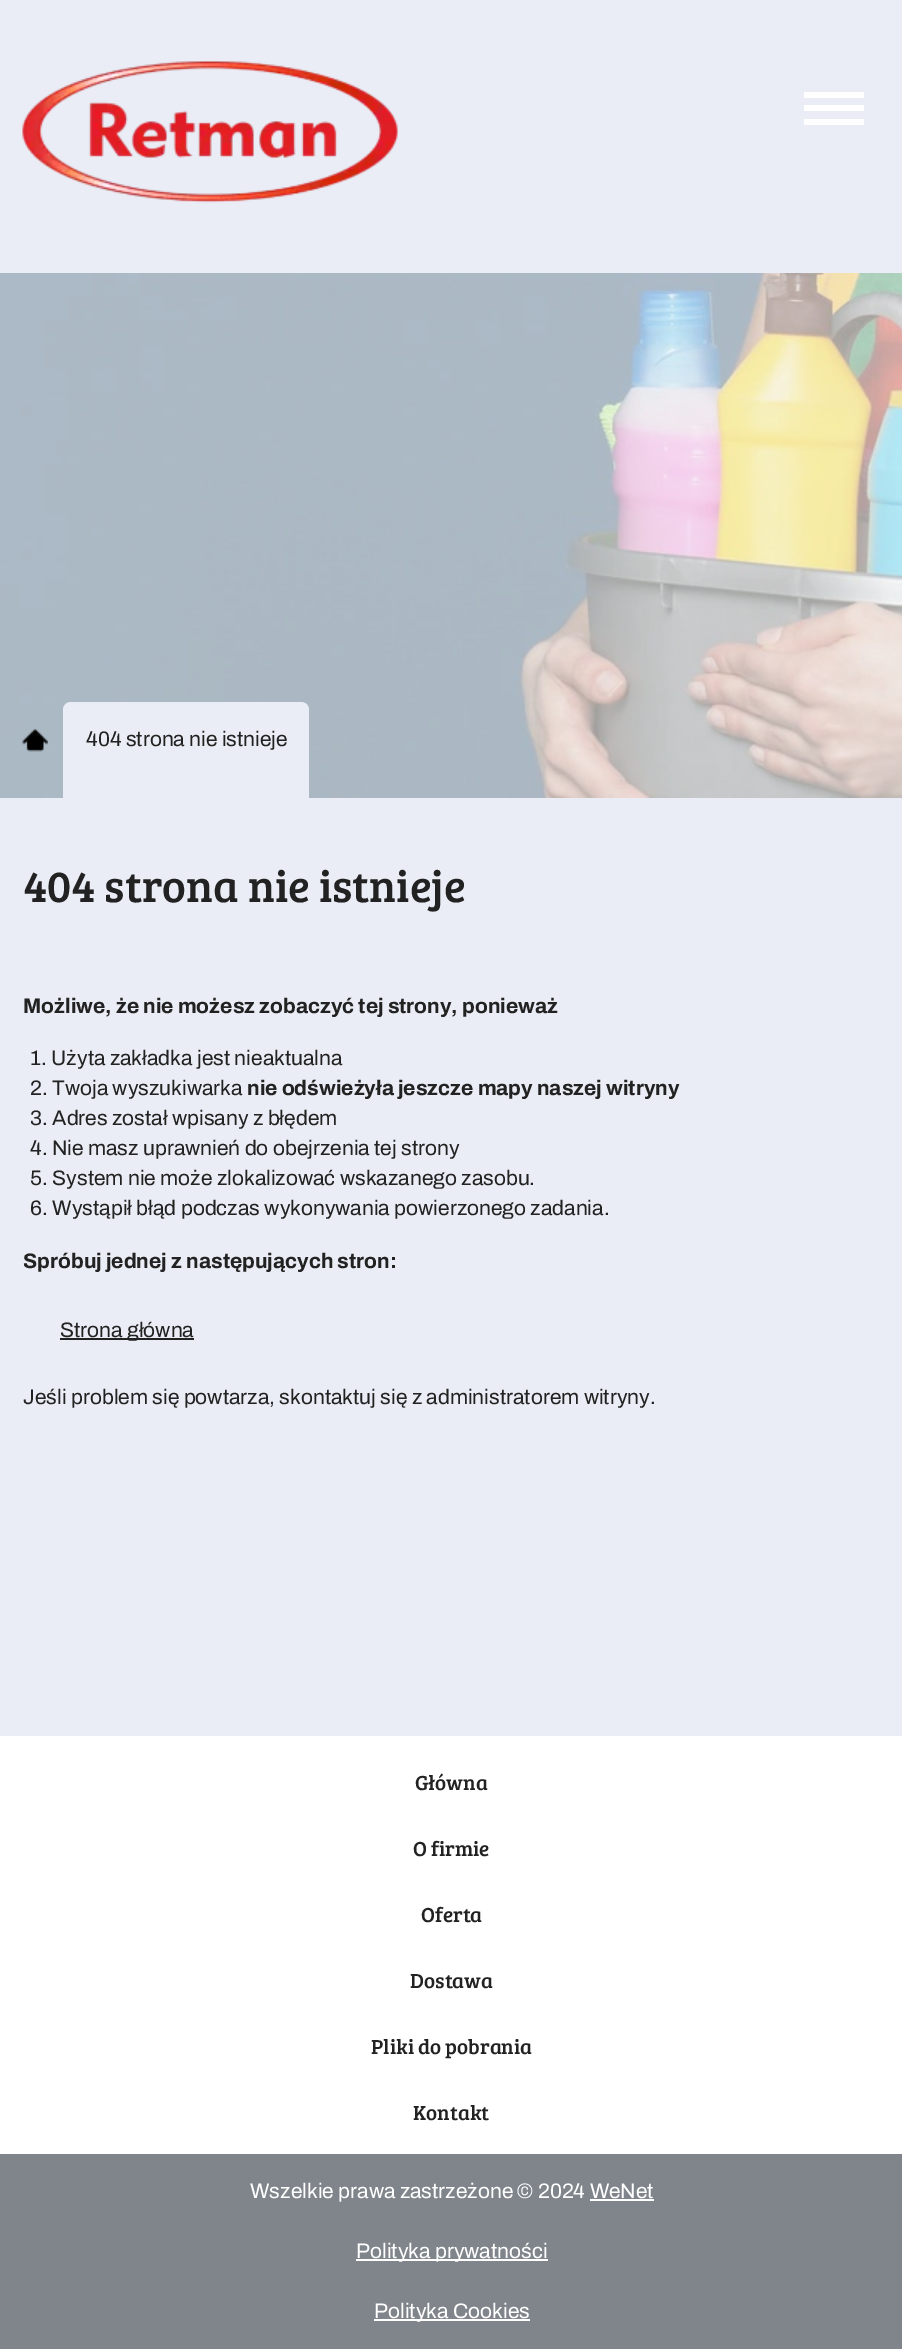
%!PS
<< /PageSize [902 2349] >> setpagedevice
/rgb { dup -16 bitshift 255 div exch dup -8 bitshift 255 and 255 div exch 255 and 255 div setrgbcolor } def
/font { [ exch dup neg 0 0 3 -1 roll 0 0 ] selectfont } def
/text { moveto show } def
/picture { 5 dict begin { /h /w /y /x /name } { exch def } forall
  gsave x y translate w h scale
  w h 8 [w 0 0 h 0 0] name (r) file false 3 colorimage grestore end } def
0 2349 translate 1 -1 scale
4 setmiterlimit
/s1 { /Archivo-Regular 21 font 16#222222 rgb } def
/s2 { /BreeSerif-Regular 45 font 16#222222 rgb } def
/s3 { /Archivo-Bold 21 font 16#222222 rgb } def
/s4 { /BreeSerif-Regular 21 font 16#222222 rgb } def
/s5 { /Archivo-Regular 21 font 16#FFFFFF rgb } def
16#EAEDF5 rgb
0 0 902 2349 rectfill
(pic1.raw) 22 61 376 142 picture
16#FFFFFF rgb
804 92 60 6 rectfill
804 105 60 6 rectfill
804 119 60 6 rectfill
(pic2.raw) 0 273 902 525 picture
(pic3.raw) 22 729 26 23 picture
16#EAEDF5 rgb
71 702 moveto 301 702 lineto 305.5 702 309 705.5 309 710 curveto 309 800 lineto 63 800 lineto 63 710 lineto 63 705.5 66.5 702 71 702 curveto closepath fill
s1
(404 strona nie istnieje) 86 746 text
s2
(404 strona nie istnieje) 23 902 text
s3
(Możliwe, że nie możesz zobaczyć tej strony, ponieważ) 23 1013 text
s1
(1. Użyta zakładka jest nieaktualna) 30 1065 text
(2. Twoja wyszukiwarka) 30 1095 text
s3
(nie odświeżyła jeszcze mapy naszej witryny) 247 1095 text
s1
(3. Adres został wpisany z błędem) 30 1125 text
(4. Nie masz uprawnień do obejrzenia tej strony) 30 1155 text
(5. System nie może zlokalizować wskazanego zasobu.) 30 1185 text
(6. Wystąpił błąd podczas wykonywania powierzonego zadania.) 30 1215 text
s3
(Spróbuj jednej z następujących stron:) 23 1268 text
60 1338 134 2 rectfill
s1
(Strona główna) 60 1337 text
(Jeśli problem się powtarza, skontaktuj się z administratorem witryny.) 23 1404 text
16#FFFFFF rgb
0 1736 902 418 rectfill
s4
(Główna) 415 1790 text
(O firmie) 413 1856 text
(Oferta) 421 1922 text
(Dostawa) 410 1988 text
(Pliki do pobrania) 371 2054 text
(Kontakt) 413 2120 text
16#7F858A rgb
0 2154 902 195 rectfill
s5
(Wszelkie prawa zastrzeżone © 2024 WeNet) 250 2198 text
590 2199 64 2 rectfill
356 2259 192 2 rectfill
(Polityka prywatności) 356 2258 text
374 2319 156 2 rectfill
(Polityka Cookies) 374 2318 text
showpage
